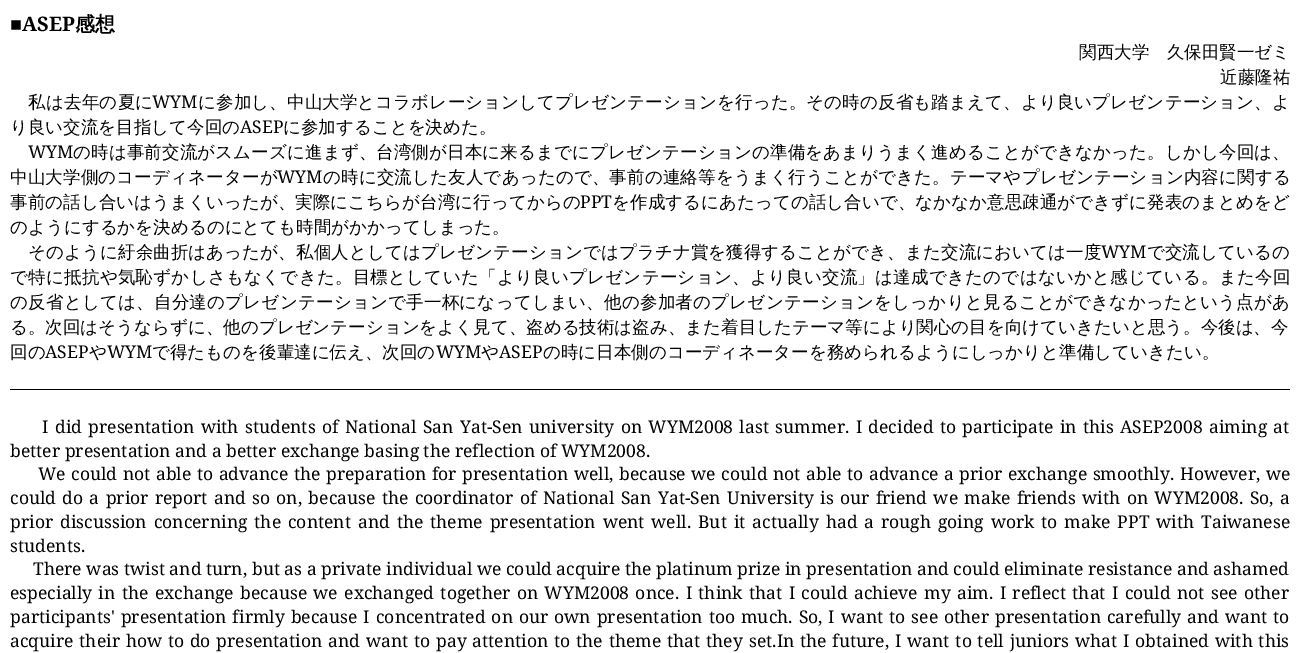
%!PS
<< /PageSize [1299 653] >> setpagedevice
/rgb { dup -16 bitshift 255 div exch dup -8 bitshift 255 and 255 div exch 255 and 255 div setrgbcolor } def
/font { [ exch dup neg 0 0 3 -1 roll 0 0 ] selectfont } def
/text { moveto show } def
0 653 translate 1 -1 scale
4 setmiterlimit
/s1 { /LiberationSerif-Bold 20 font 16#000000 rgb } def
/s2 { /NotoSerif-Bold 20 font 16#000000 rgb } def
/s3 { /WenQuanYiZenHei-Bold 20 font 16#000000 rgb } def
/s4 { /WenQuanYiZenHei-Medium 17.5 font 16#000000 rgb } def
/s5 { /NotoSerif-Regular 17.5 font 16#000000 rgb } def
16#FFFFFF rgb
0 0 1299 653 rectfill
s1
(■) 10 31 text
s2
(ASEP) 22 31 text
s3
(感想) 75 31 text
s4
(関西大学　久保田賢一ゼミ) 1079 58 text
(近藤隆祐) 1220 83 text
28 108 moveto 0.25 0 (私は去年の夏に) ashow
s5
(WYM) 152 108 text
/WenQuanYiZenHei-Medium 17.5 font
198 108 moveto 0.12 0 (に参加し、中山大学とコラボレーションしてプレゼンテーションを行った。その時の反省も踏まえて、より良いプレゼンテーション、よ) ashow
(り良い交流を目指して今回の) 10 133 text
s5
(ASEP) 240 133 text
s4
(に参加することを決めた。) 283 133 text
s5
(WYM) 28 158 text
/WenQuanYiZenHei-Medium 17.5 font
73 158 moveto 0.12 0 (の時は事前交流がスムーズに進まず、台湾側が日本に来るまでにプレゼンテーションの準備をあまりうまく進めることができなかった。しかし今回は、) ashow
10 183 moveto 0.15 0 (中山大学側のコーディネーターが) ashow
s5
(WYM) 277 183 text
/WenQuanYiZenHei-Medium 17.5 font
323 183 moveto 0.15 0 (の時に交流した友人であったので、事前の連絡等をうまく行うことができた。テーマやプレゼンテーション内容に関する) ashow
10 208 moveto 0.05 0 (事前の話し合いはうまくいったが、実際にこちらが台湾に行ってからの) ashow
s5
(PPT) 580 208 text
/WenQuanYiZenHei-Medium 17.5 font
612 208 moveto 0.05 0 (を作成するにあたっての話し合いで、なかなか意思疎通ができずに発表のまとめをど) ashow
(のようにするかを決めるのにとても時間がかかってしまった。) 10 233 text
10 389 1280 1 rectfill
28 258 moveto 0.1 0 (そのように紆余曲折はあったが、私個人としてはプレゼンテーションではプラチナ賞を獲得することができ、また交流においては一度) ashow
s5
(WYM) 1101 258 text
s4
(で交流しているの) 1147 258 text
10 283 moveto 0.25 0 (で特に抵抗や気恥ずかしさもなくできた。目標としていた「より良いプレゼンテーション、より良い交流」は達成できたのではないかと感じている。また今回) ashow
10 308 moveto 0.23 0 (の反省としては、自分達のプレゼンテーションで手一杯になってしまい、他の参加者のプレゼンテーションをしっかりと見ることができなかったという点があ) ashow
(る。次回はそうならずに、他のプレゼンテーションをよく見て、盗める技術は盗み、また着目したテーマ等により関心の目を向けていきたいと思う。今後は、今) 10 333 text
(回の) 10 358 text
s5
(ASEP) 45 358 text
s4
(や) 89 358 text
s5
(WYM) 107 358 text
s4
(で得たものを後輩達に伝え、次回の) 152 358 text
s5
(WYM) 436 358 text
s4
(や) 481 358 text
s5
(ASEP) 499 358 text
s4
(の時に日本側のコーディネーターを務められるようにしっかりと準備していきたい。) 543 358 text
/NotoSerif-Regular 17.5 font
42 433 moveto 1.8 0 32 (I did presentation with students of National San) widthshow
(Yat-Sen) 460 433 text
529 433 moveto 1.8 0 32 (university on WYM2008 last summer. I decided to participate in this ASEP2008 aiming at) widthshow
(better presentation and a better exchange basing the reflection of WYM2008.) 10 457 text
38 480 moveto 1 0 32 (We could not able to advance the preparation for presentation well, because we could not able to advance a prior exchange smoothly. However, we) widthshow
10 504 moveto 1.75 0 32 (could do a prior report and so on, because the coordinator of National San) widthshow
(Yat-Sen) 658 504 text
727 504 moveto 1.75 0 32 (University is our friend we make friends with on WYM2008. So, a) widthshow
10 528 moveto 2.4 0 32 (prior discussion concerning the content and the theme presentation went well. But it actually had a rough going work to make PPT with Taiwanese) widthshow
(students.) 10 552 text
33 575 moveto 0.1 0 32 (There was twist and turn, but as a private individual we could acquire the platinum prize in presentation and could eliminate resistance and ashamed) widthshow
10 599 moveto 1.8 0 32 (especially in the exchange because we exchanged together on WYM2008 once. I think that I could achieve my aim. I reflect that I could not see other) widthshow
10 623 moveto 1.4 0 32 (participants' presentation firmly because I concentrated on our own presentation too much. So, I want to see other presentation carefully and want to) widthshow
10 647 moveto 1.25 0 32 (acquire their how to do presentation and want to pay attention to the theme that they) widthshow
(set.In) 749 647 text
800 647 moveto 1.25 0 32 (the future, I want to tell juniors what I obtained with this) widthshow
showpage
